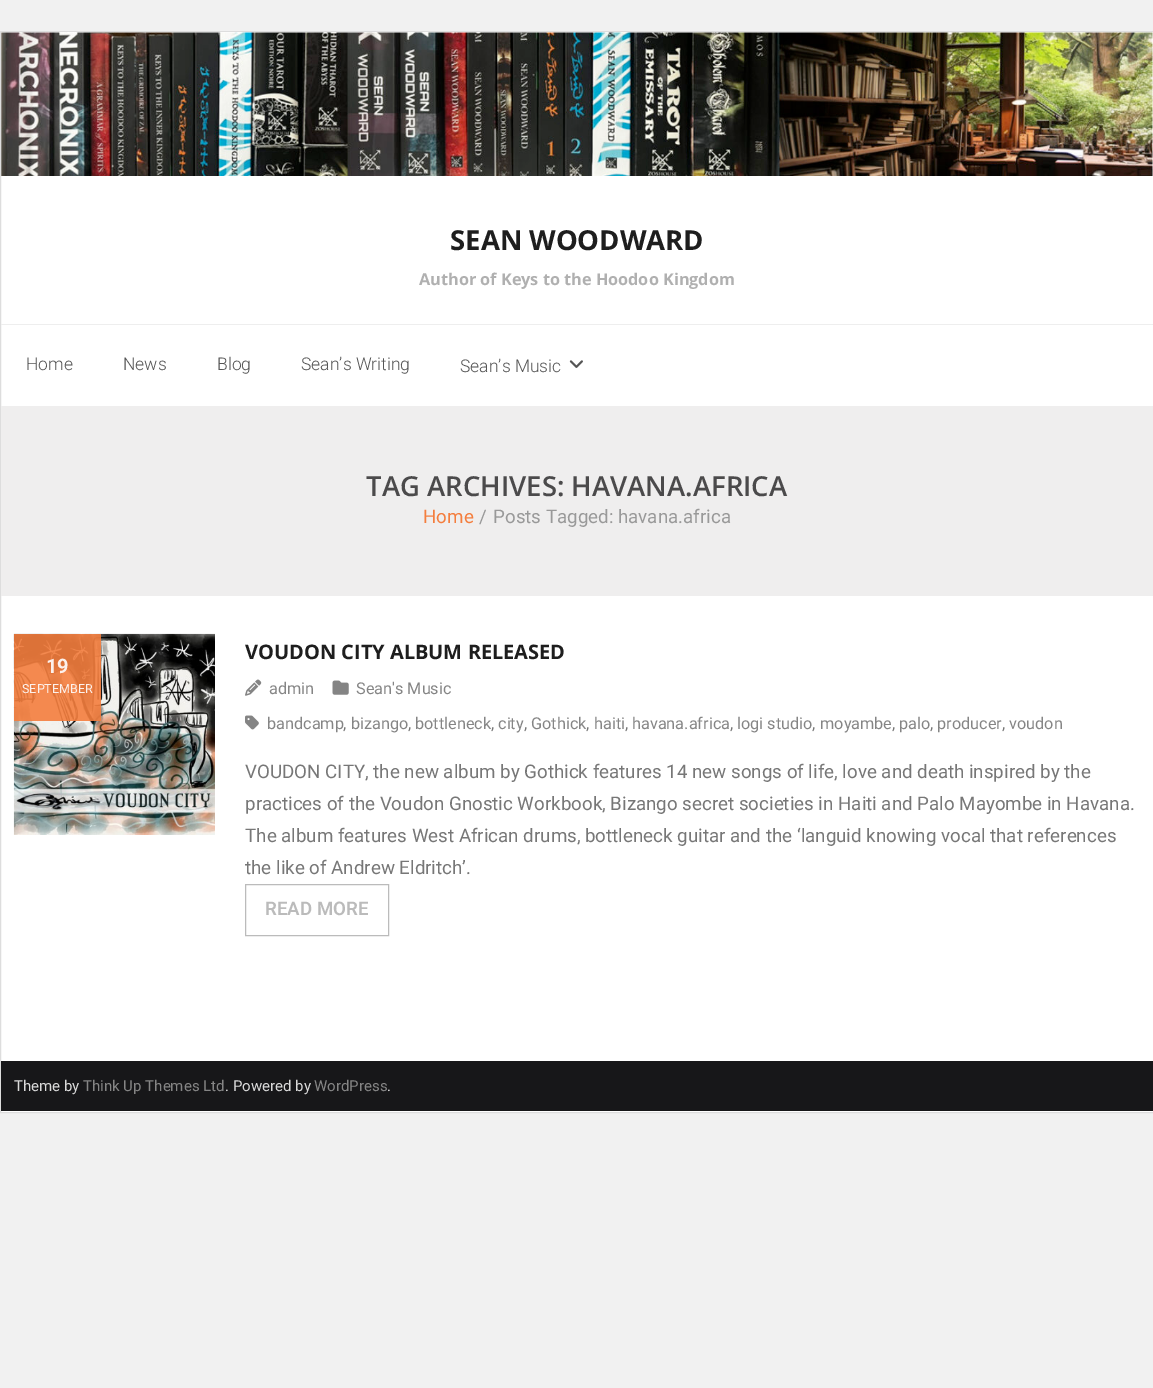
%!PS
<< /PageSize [1153 1388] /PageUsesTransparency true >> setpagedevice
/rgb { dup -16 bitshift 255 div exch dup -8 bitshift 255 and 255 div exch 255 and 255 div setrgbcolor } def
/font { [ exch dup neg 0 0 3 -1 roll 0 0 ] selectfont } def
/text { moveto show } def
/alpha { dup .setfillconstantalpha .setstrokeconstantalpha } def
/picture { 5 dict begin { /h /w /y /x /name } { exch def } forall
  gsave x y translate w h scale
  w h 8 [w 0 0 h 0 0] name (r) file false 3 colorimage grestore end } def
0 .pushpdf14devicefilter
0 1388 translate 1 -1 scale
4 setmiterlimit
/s1 { /OpenSans-Bold 27.5 font 16#1E1E1E rgb } def
/s2 { /OpenSans-Bold 16.25 font 16#B0B0B0 rgb } def
/s3 { /Roboto-Light 17.5 font 16#555555 rgb } def
/s4 { /OpenSans-SemiBold 27.5 font 16#4B4A4B rgb } def
/s5 { /Roboto-Regular 18.75 font 16#F47E3E rgb } def
/s6 { /Roboto-Regular 18.75 font 16#999999 rgb } def
/s7 { /OpenSans-Bold 20 font 16#1E1E1E rgb } def
/s8 { /Roboto-Bold 20 font 16#FCF1EC rgb } def
/s9 { /Roboto-Regular 12.5 font 16#FCF1EC rgb } def
/s10 { /Roboto-Regular 16.25 font 16#858585 rgb } def
/s11 { /Roboto-Regular 16.25 font 16#777777 rgb } def
/s12 { /Roboto-Regular 18.75 font 16#777777 rgb } def
/s13 { /Roboto-SemiBold 18.75 font 16#BBBBBB rgb } def
/s14 { /Roboto-Regular 15 font 16#DADADA rgb } def
/s15 { /Roboto-Regular 15 font 16#858585 rgb } def
16#F1F1F1 rgb
0 0 1153 1388 rectfill
16#FFFFFF rgb
0.5 31.5 moveto 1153.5 31.5 lineto 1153.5 1112.5 lineto 0.5 1112.5 lineto closepath gsave fill grestore
16#DDDDDD rgb
stroke
(pic1.raw) 1 32 1152 144 picture
s1
(SEAN WOODWARD) 450 250 text
s2
(Author of Keys to the Hoodoo Kingdom) 419 285 text
16#EEEEEE rgb
1 324 1152 1 rectfill
s3
(Home) 26 370 text
(News) 123 370 text
(Blog) 217 370 text
(Sean’s Writing) 301 370 text
(Sean’s Music) 460 372 text
(pic2.raw) 569 360 14 8 picture
16#EFEEEE rgb
1 406 1152 190 rectfill
s4
(TAG ARCHIVES: HAVANA.AFRICA) 366 496 text
s5
(Home) 423 523 text
s6
(/) 479 523 text
(Posts Tagged: havana.africa) 493 523 text
(pic3.raw) 13 633 202 202 picture
s7
(VOUDON CITY ALBUM RELEASED) 245 659 text
0.9 alpha
16#F47E3E rgb
14 634 87 87 rectfill
1 alpha
s8
(19) 46 673 text
s9
(SEPTEMBER) 22 693 text
(pic4.raw) 245 679 17 17 picture
s10
(admin) 269 694 text
(pic5.raw) 332 680 17 15 picture
(Sean's Music) 356 694 text
(pic6.raw) 245 715 14 15 picture
(bandcamp) 267 729 text
s11
(,) 343 729 text
s10
(bizango) 351 729 text
s11
(,) 408 729 text
(,) 491 729 text
s10
(bottleneck) 415 729 text
(city) 498 729 text
s11
(,) 524 729 text
(,) 586 729 text
s10
(Gothick) 531 729 text
(haiti) 594 729 text
s11
(,) 625 729 text
s10
(havana.africa) 632 729 text
s11
(,) 730 729 text
s10
(logi studio) 737 729 text
s11
(,) 812 729 text
s10
(moyambe) 820 729 text
s11
(,) 892 729 text
s10
(palo) 899 729 text
s11
(,) 930 729 text
s10
(producer) 937 729 text
s11
(,) 1002 729 text
s10
(voudon) 1009 729 text
s12
(VOUDON CITY, the new album by Gothick features 14 new songs of life, love and death inspired by the) 245 778 text
(practices of the Voudon Gnostic Workbook, Bizango secret societies in Haiti and Palo Mayombe in Havana.) 245 810 text
(The album features West African drums, bottleneck guitar and the ‘languid knowing vocal that references) 245 842 text
(the like of Andrew Eldritch’.) 245 874 text
16#BBBBBB rgb
245.5 884.5 143 51 rectstroke
s13
(READ MORE) 265 915 text
16#171719 rgb
1 1061 1152 50 rectfill
s14
(Theme by) 14 1091 text
s15
(Think Up Themes Ltd) 83 1091 text
s14
(. Powered by) 225 1091 text
s15
(WordPress) 314 1091 text
s14
(.) 387 1091 text
.poppdf14devicefilter showpage
